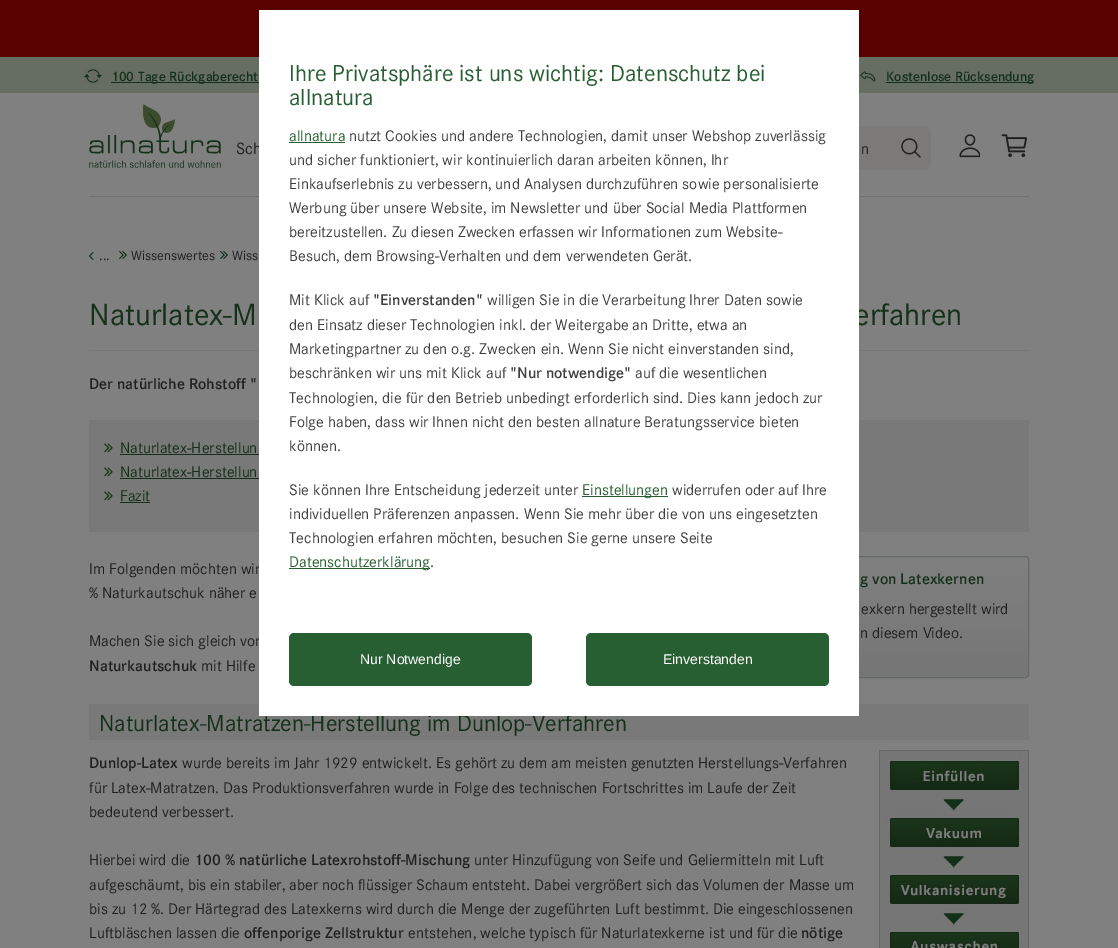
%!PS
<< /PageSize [1118 948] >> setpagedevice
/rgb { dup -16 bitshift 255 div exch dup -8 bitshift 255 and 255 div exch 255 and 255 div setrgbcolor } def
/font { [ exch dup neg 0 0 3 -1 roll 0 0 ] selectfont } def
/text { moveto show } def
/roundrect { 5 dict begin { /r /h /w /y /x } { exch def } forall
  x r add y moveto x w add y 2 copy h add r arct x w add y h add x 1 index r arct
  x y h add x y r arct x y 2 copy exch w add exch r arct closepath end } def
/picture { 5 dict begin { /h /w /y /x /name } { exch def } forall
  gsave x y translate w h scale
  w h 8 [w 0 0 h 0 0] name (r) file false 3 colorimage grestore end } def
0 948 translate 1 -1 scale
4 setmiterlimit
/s1 { /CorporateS-Regular 17 font 16#202020 rgb } def
/s2 { /CorporateS-Regular 32 font 16#143019 rgb } def
/s3 { /CorporateS-Regular 16 font 16#202020 rgb } def
/s4 { /CorporateS-Regular 24 font 16#143019 rgb } def
/s5 { /CorporateS-Regular 24 font 16#285F32 rgb } def
/s6 { /CorporateS-Regular 16 font 16#285F32 rgb } def
/s7 { /CorporateS-Regular 16 font 16#3F3F3F rgb } def
/s8 { /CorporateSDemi-Regular 16 font 16#3F3F3F rgb } def
/s9 { /LiberationSans-Regular 14 font 16#FFFFFF rgb } def
/s10 { /CorporateSDemi-Regular 14 font 16#143019 rgb } def
/s11 { /CorporateS-Regular 14 font 16#202020 rgb } def
/s12 { /CorporateSDemi-Regular 16 font 16#202020 rgb } def
/s13 { /CorporateS-Regular 16 font 16#143019 rgb } def
/s14 { /CorporateSDemi-Regular 16 font 16#143019 rgb } def
16#808080 rgb
0 0 1118 948 rectfill
16#590000 rgb
0 0 1118 57 rectfill
16#666D61 rgb
0 57 1118 36 rectfill
16#143019 rgb
111 82 150 1 rectfill
16#716F6D rgb
89 196 940 1 rectfill
s1
(Sch) 236 154 text
16#7C7A78 rgb
721 126 210 44 8 roundrect fill
16#777777 rgb
89 350 940 1 rectfill
s2
(erfahren) 854 325 text
16#797979 rgb
89 420 940 112 rectfill
s3
(Im Folgenden möchten wir) 89 574 text
gsave
629 556 400 122 3 roundrect clip newpath
gsave 859 557 moveto 1029 557 lineto 1029 677 lineto 859 677 lineto closepath clip newpath
<< /ShadingType 2 /ColorSpace /DeviceRGB /Coords [829 557 829 677] /Extend [true true] /Function << /FunctionType 2 /Domain [0 1] /C0 [0.502 0.502 0.502] /C1 [0.463 0.463 0.463] /N 1 >> >> shfill grestore
grestore
16#646B64 rgb
629.5 556.5 399 121 2.5 roundrect stroke
s3
(Machen Sie sich gleich vor) 89 646 text
16#797979 rgb
89 704 940 36 rectfill
s4
(Naturlatex-Matratzen-Herstellung im Dunlop-Verfahren) 99 731 text
16#FFFFFF rgb
259 10 600 706 rectfill
s5
(Ihre Privatsphäre ist uns wichtig: Datenschutz bei) 289 81 text
(allnatura) 289 105 text
s6
(allnatura) 289 141 text
289 142 56 1 rectfill
s7
(nutzt Cookies und andere Technologien, damit unser Webshop zuverlässig) 349 141 text
(und sicher funktioniert, wir kontinuierlich daran arbeiten können, Ihr) 289 165 text
(Einkaufserlebnis zu verbessern, und Analysen durchzuführen sowie personalisierte) 289 189 text
(Werbung über unsere Website, im Newsletter und über Social Media Plattformen) 289 213 text
(bereitzustellen. Zu diesen Zwecken erfassen wir Informationen zum Website-) 289 237 text
(Besuch, dem Browsing-Verhalten und dem verwendeten Gerät.) 289 261 text
(Mit Klick auf) 289 305 text
s8
("Einverstanden") 373 305 text
s7
(willigen Sie in die Verarbeitung Ihrer Daten sowie) 487 305 text
(den Einsatz dieser Technologien inkl. der Weitergabe an Dritte, etwa an) 289 330 text
(Marketingpartner zu den o.g. Zwecken ein. Wenn Sie nicht einverstanden sind,) 289 354 text
(beschränken wir uns mit Klick auf) 289 378 text
s8
("Nur notwendige") 510 378 text
s7
(auf die wesentlichen) 635 378 text
(Technologien, die für den Betrieb unbedingt erforderlich sind. Dies kann jedoch zur) 289 403 text
(Folge haben, dass wir Ihnen nicht den besten allnature Beratungsservice bieten) 289 427 text
(können.) 289 451 text
(Sie können Ihre Entscheidung jederzeit unter) 289 495 text
16#285F32 rgb
582 496 86 1 rectfill
(Einstellungen) 582 495 text
s7
(widerrufen oder auf Ihre) 672 495 text
(individuellen Präferenzen anpassen. Wenn Sie mehr über die von uns eingesetzten) 289 519 text
(Technologien erfahren möchten, besuchen Sie gerne unsere Seite) 289 543 text
16#285F32 rgb
289 568 141 1 rectfill
(Datenschutzerklärung) 289 567 text
s7
(.) 430 567 text
16#285F32 rgb
289 633 243 53 5 roundrect fill
s9
(Nur Notwendige) 360 664 text
16#285F32 rgb
586 633 243 53 5 roundrect fill
s9
(Einverstanden) 663 664 text
(pic1.raw) 84 69 18 14 picture
s10
(100 Tage Rückgaberecht) 111 81 text
(pic2.raw) 860 71 16 11 picture
886 82 148 1 rectfill
(Kostenlose Rücksendung) 886 81 text
(pic3.raw) 89 104 132 64 picture
s3
(n) 861 154 text
(pic4.raw) 901 138 20 20 picture
(pic5.raw) 959 134 21 24 picture
(pic6.raw) 1001 134 26 23 picture
(pic7.raw) 89 252 5 8 picture
s11
(...) 99 260 text
(pic8.raw) 119 251 8 8 picture
(Wissenswertes) 131 260 text
(pic8.raw) 220 251 8 8 picture
(Wiss) 232 260 text
s2
(Naturlatex-M) 89 325 text
s12
(Der natürliche Rohstoff ") 89 389 text
(pic9.raw) 104 443 9 10 picture
s13
(Naturlatex-Herstellun) 120 453 text
120 454 139 1 rectfill
(pic9.raw) 104 467 9 10 picture
(Naturlatex-Herstellun) 120 477 text
120 478 139 1 rectfill
(pic9.raw) 104 491 9 10 picture
(Fazit) 120 501 text
120 502 30 1 rectfill
s3
(% Naturkautschuk näher e) 89 598 text
s14
(g von Latexkernen) 860 584 text
s3
(exkern hergestellt wird) 861 614 text
(n diesem Video.) 860 638 text
s12
(Naturkautschuk) 89 671 text
s3
(mit Hilfe) 201 671 text
s12
(Dunlop-Latex) 89 768 text
s3
(wurde bereits im Jahr 1929 entwickelt. Es gehört zu dem am meisten genutzten Herstellungs-Verfahren) 182 768 text
(pic10.raw) 879 750 150 198 picture
(für Latex-Matratzen. Das Produktionsverfahren wurde in Folge des technischen Fortschrittes im Laufe der Zeit) 89 793 text
(bedeutend verbessert.) 89 817 text
(Hierbei wird die) 89 865 text
s12
(100 % natürliche Latexrohstoff-Mischung) 194 865 text
s3
(unter Hinzufügung von Seife und Geliermitteln mit Luft) 474 865 text
(aufgeschäumt, bis ein stabiler, aber noch flüssiger Schaum entsteht. Dabei vergrößert sich das Volumen der Masse um) 89 890 text
(bis zu 12 %. Der Härtegrad des Latexkerns wird durch die Menge der zugeführten Luft bestimmt. Die eingeschlossenen) 89 914 text
(Luftbläschen lassen die) 89 938 text
s12
(offenporige Zellstruktur) 244 938 text
s3
(entstehen, welche typisch für Naturlatexkerne ist und für die) 408 938 text
s12
(nötige) 801 938 text
showpage
